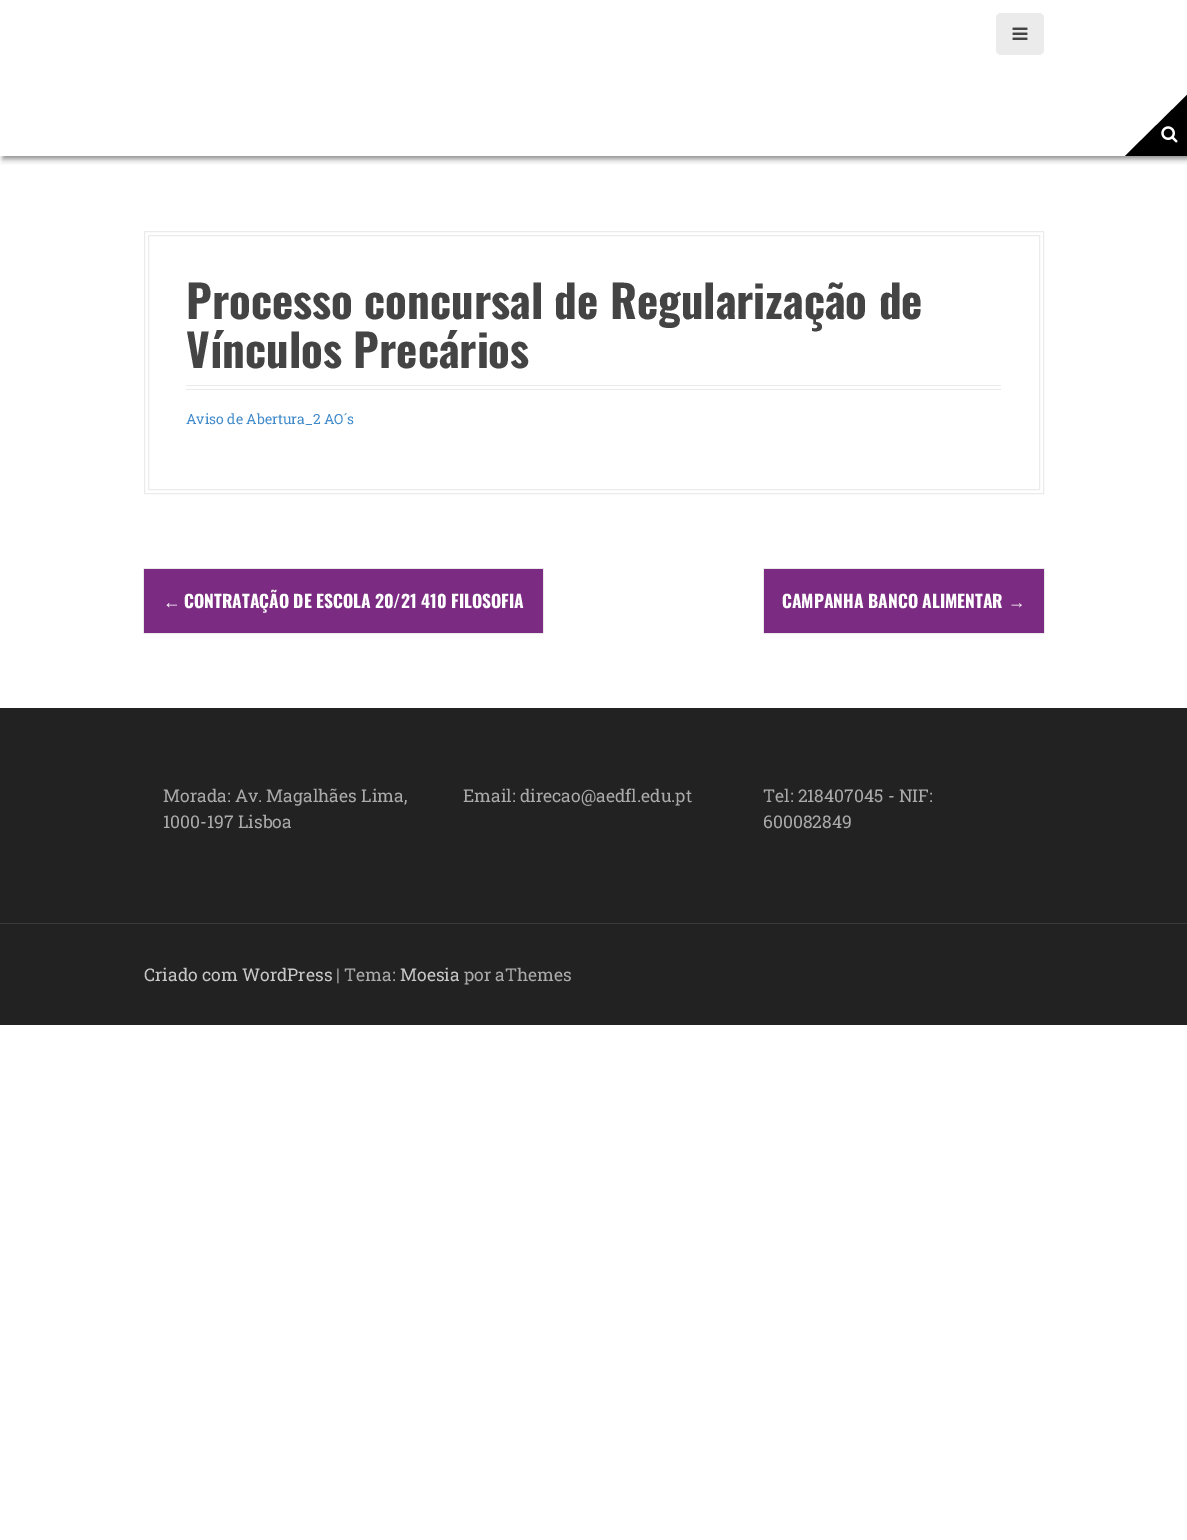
%!PS
<< /PageSize [1187 1540] /PageUsesTransparency true >> setpagedevice
/rgb { dup -16 bitshift 255 div exch dup -8 bitshift 255 and 255 div exch 255 and 255 div setrgbcolor } def
/font { [ exch dup neg 0 0 3 -1 roll 0 0 ] selectfont } def
/text { moveto show } def
/alpha { dup .setfillconstantalpha .setstrokeconstantalpha } def
/roundrect { 5 dict begin { /r /h /w /y /x } { exch def } forall
  x r add y moveto x w add y 2 copy h add r arct x w add y h add x 1 index r arct
  x y h add x y r arct x y 2 copy exch w add exch r arct closepath end } def
/shadow { 12 dict begin { /a /b /q /h /w /y /x } { exch def } forall gsave /was 0 def
  9 -2 -9 { dup b mul 4 div /e exch def 1 sub .425 mul 2.718 exch exp 1 add a .99 .min exch div /now exch def
    1 1 now sub 1 was sub div sub alpha /was now def
    w h .min e 2 mul add 0 gt { x e sub y e sub w e 2 mul add h e 2 mul add
      q e add b .6 mul add w h .min 2 div e add .min 0 .max roundrect fill } if } for grestore end } def
/picture { 5 dict begin { /h /w /y /x /name } { exch def } forall
  gsave x y translate w h scale
  w h 8 [w 0 0 h 0 0] name (r) file false 3 colorimage grestore end } def
0 .pushpdf14devicefilter
0 1540 translate 1 -1 scale
4 setmiterlimit
/s1 { /Oswald-Bold 45 font 16#444444 rgb } def
/s2 { /RobotoSlab-Regular 14 font 16#428BCA rgb } def
/s3 { /LiberationSerif-Bold 17.5 font 16#FFFFFF rgb } def
/s4 { /Oswald-Bold 17.5 font 16#FFFFFF rgb } def
/s5 { /RobotoSlab-Regular 17.5 font 16#AAAAAA rgb } def
/s6 { /RobotoSlab-Regular 17.5 font 16#C8C8C8 rgb } def
16#FFFFFF rgb
0 0 1187 1540 rectfill
gsave
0 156 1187 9 rectclip
16#888888 rgb
3 3 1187 156 0 3 1 shadow
grestore
16#EBEBEB rgb
996 13 48 42 5 roundrect fill
(pic1.raw) 1012 27 16 13 picture
16#000000 rgb
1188 94 moveto 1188 156 lineto 1125 156 lineto closepath fill
(pic2.raw) 1161 126 17 17 picture
16#EBEBEB rgb
144.5 231.5 899 262 rectstroke
148.5 235.5 891 254 rectstroke
186 385 815 1 rectfill
186 389 815 1 rectfill
s1
(Processo concursal de Regularização de) 186 319 text
(Vínculos Precários) 186 368 text
s2
(Aviso de Abertura_2 AO´s) 186 424 text
16#ADADAD rgb
144 569 399 64 0 0.5 1 shadow
16#7C2B83 rgb
144 569 399 64 rectfill
s3
(←) 163 608 text
s4
(CONTRATAÇÃO DE ESCOLA 20/21 410 FILOSOFIA) 184 608 text
16#ADADAD rgb
764 569 280 64 0 0.5 1 shadow
16#7C2B83 rgb
764 569 280 64 rectfill
s4
(CAMPANHA BANCO ALIMENTAR) 782 608 text
s3
(→) 1008 608 text
16#222222 rgb
0 708 1187 215 rectfill
s5
(Morada: Av. Magalhães Lima,) 163 802 text
(1000-197 Lisboa) 163 828 text
(Email: direcao@aedfl.edu.pt) 463 802 text
(Tel: 218407045 - NIF:) 763 802 text
(600082849) 763 828 text
16#222222 rgb
0 924 1187 101 rectfill
16#3A3A3A rgb
0 923 1187 1 rectfill
s6
(Criado com WordPress) 144 981 text
s5
(| Tema:) 336 981 text
s6
(Moesia) 400 981 text
s5
(por aThemes) 464 981 text
.poppdf14devicefilter showpage
